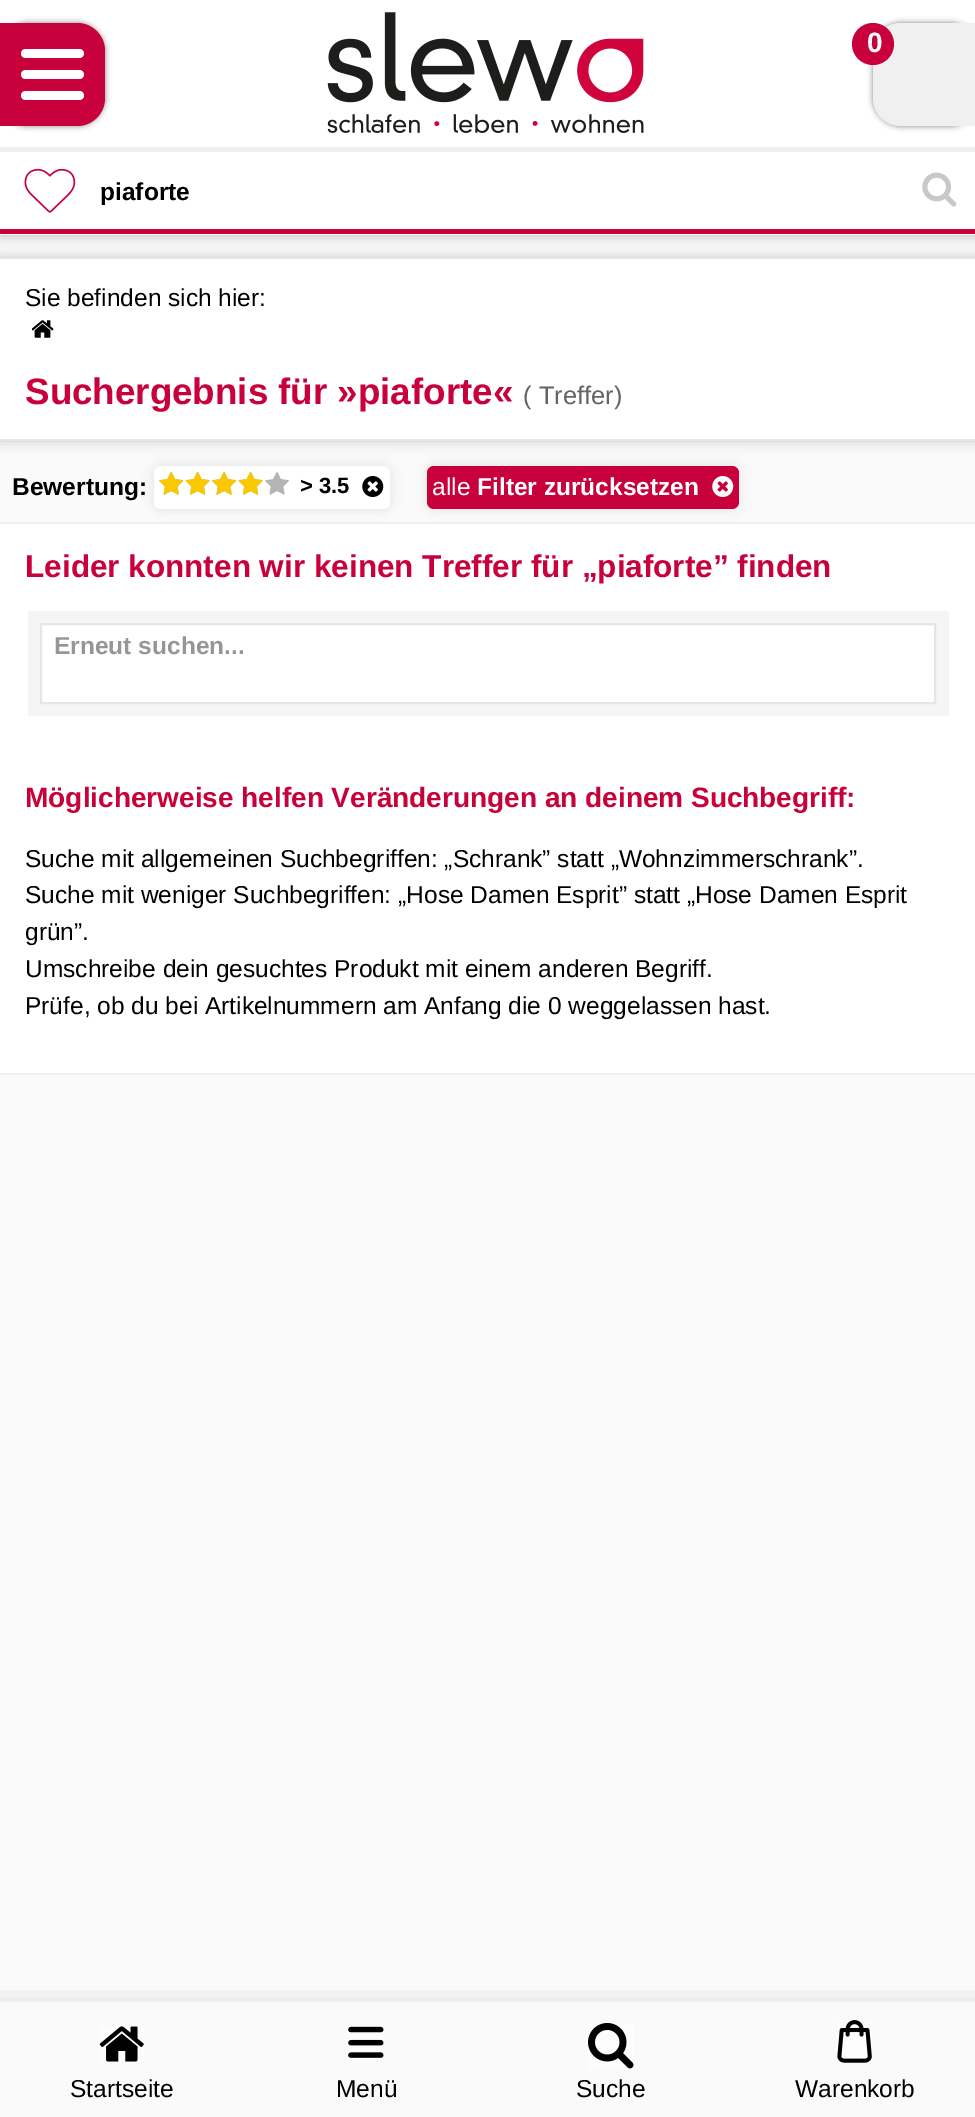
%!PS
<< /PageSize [975 2117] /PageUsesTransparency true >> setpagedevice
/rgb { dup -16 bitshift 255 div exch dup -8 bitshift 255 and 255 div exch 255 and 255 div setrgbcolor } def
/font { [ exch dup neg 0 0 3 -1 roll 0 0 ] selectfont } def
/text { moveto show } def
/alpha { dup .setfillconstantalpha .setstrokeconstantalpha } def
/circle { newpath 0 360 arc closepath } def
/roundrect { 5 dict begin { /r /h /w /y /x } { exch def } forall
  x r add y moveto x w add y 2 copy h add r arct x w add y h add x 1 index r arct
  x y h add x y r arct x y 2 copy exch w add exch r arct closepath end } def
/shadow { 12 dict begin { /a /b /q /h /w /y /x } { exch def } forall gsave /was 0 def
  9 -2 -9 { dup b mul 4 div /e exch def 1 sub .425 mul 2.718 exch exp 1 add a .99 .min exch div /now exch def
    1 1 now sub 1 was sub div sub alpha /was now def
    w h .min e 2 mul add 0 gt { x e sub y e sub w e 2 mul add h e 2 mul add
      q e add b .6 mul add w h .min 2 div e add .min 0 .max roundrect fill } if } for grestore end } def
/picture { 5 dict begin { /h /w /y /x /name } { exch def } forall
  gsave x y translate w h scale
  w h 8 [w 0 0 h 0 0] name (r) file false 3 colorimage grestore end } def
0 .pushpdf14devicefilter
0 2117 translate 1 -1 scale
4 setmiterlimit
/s1 { /LiberationSans-Bold 28 font 16#FFFFFF rgb } def
/s2 { /LiberationSans-Bold 24.5 font 16#000000 rgb } def
/s3 { /LiberationSans-Regular 24.5 font 16#000000 rgb } def
/s4 { /LiberationSans-Bold 36.75 font 16#C8003C rgb } def
/s5 { /LiberationSans-Regular 25.5 font 16#646464 rgb } def
/s6 { /LiberationSans-Bold 22 font 16#000000 rgb } def
/s7 { /LiberationSans-Regular 24.5 font 16#FFFFFF rgb } def
/s8 { /LiberationSans-Bold 24.5 font 16#FFFFFF rgb } def
/s9 { /LiberationSans-Bold 31.5 font 16#C8003C rgb } def
/s10 { /LiberationSans-Bold 24.5 font 16#969696 rgb } def
/s11 { /LiberationSans-Bold 28 font 16#C8003C rgb } def
16#FAFAFA rgb
0 0 975 2117 rectfill
gsave
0 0 moveto 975 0 lineto 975 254 lineto 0 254 lineto closepath 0 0 moveto 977 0 lineto 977 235 lineto 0 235 lineto closepath eoclip newpath
16#000000 rgb
0 0 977 235 0 6 0.3 shadow
grestore
0.9 alpha
16#FFFFFF rgb
0 0 975 235 rectfill
1 alpha
16#000000 rgb
873 23 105 103 28 3 0.5 shadow
16#F0F0F0 rgb
901 23 moveto 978 23 lineto 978 126 lineto 901 126 lineto 885.5 126 873 113.5 873 98 curveto 873 51 lineto 873 35.5 885.5 23 901 23 curveto closepath fill
16#C8003C rgb
873 44 21 circle fill
s1
(0) 867 52 text
(pic1.raw) 327 12 317 121 picture
16#F0F0F0 rgb
0 147 975 5 rectfill
16#C8003C rgb
0 229 975 5 rectfill
(pic2.raw) 24 168 52 45 picture
s2
(piaforte) 100 200 text
(pic3.raw) 922 172 35 35 picture
0 23 105 103 28 3 0.5 shadow
16#C8003C rgb
0 23 moveto 77 23 lineto 92.5 23 105 35.5 105 51 curveto 105 98 lineto 105 113.5 92.5 126 77 126 curveto 0 126 lineto closepath fill
16#FFFFFF rgb
21 70 63 9 4.5 roundrect fill
21 49 63 9 4.5 roundrect fill
21 91 63 9 4.5 roundrect fill
16#C8C8C8 rgb
0 257 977 184 0 6 1 shadow
16#FFFFFF rgb
0 259 975 180 rectfill
16#E6E6E6 rgb
0 257 975 2 rectfill
0 439 975 2 rectfill
s3
(Sie befinden sich hier:) 25 306 text
(pic4.raw) 32 320 22 18 picture
s4
(Suchergebnis für »piaforte«) 25 404 text
s5
(\( Treffer\)) 523 404 text
s2
(Bewertung:) 12 495 text
16#FFFFFF rgb
0 524 975 549 rectfill
16#F0F0F0 rgb
0 522 975 2 rectfill
16#000000 rgb
154 466 236 43 7 6 0.1 shadow
16#FFFFFF rgb
154 466 236 43 7 roundrect fill
(pic5.raw) 159 472 130 23 picture
(pic6.raw) 159 472 104 23 picture
s6
(> 3.5) 300 493 text
(pic7.raw) 362 476 22 21 picture
427 466 312 43 7 6 0.1 shadow
16#C8003C rgb
427 466 312 43 7 roundrect fill
s7
(alle) 432 495 text
s8
(Filter zurücksetzen) 477 495 text
(pic8.raw) 712 476 22 21 picture
16#F0F0F0 rgb
0 1073 975 2 rectfill
s9
(Leider konnten wir keinen Treffer für „piaforte” finden) 25 577 text
16#F5F5F5 rgb
28 611 921 105 rectfill
16#FFFFFF rgb
41 624 moveto 935 624 lineto 935 703 lineto 41 703 lineto closepath gsave fill grestore
16#E6E6E6 rgb
2 setlinewidth
stroke
s10
(Erneut suchen...) 54 654 text
s11
(Möglicherweise helfen Veränderungen an deinem Suchbegriff:) 25 807 text
s3
(Suche mit allgemeinen Suchbegriffen: „Schrank” statt „Wohnzimmerschrank”.) 25 867 text
(Suche mit weniger Suchbegriffen: „Hose Damen Esprit” statt „Hose Damen Esprit) 25 903 text
(grün”.) 25 940 text
(Umschreibe dein gesuchtes Produkt mit einem anderen Begriff.) 25 977 text
(Prüfe, ob du bei Artikelnummern am Anfang die 0 weggelassen hast.) 25 1014 text
gsave
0 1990 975 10 rectclip
0 2000 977 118 0 12 0.1 shadow
grestore
16#EFEFEF rgb
0 2000 975 2 rectfill
(pic9.raw) 99 2026 45 36 picture
s3
(Startseite) 70 2097 text
(pic10.raw) 348 2026 36 32 picture
(Menü) 336 2097 text
(pic11.raw) 588 2023 46 46 picture
(Suche) 576 2097 text
(pic12.raw) 837 2020 35 43 picture
(Warenkorb) 795 2097 text
.poppdf14devicefilter showpage
